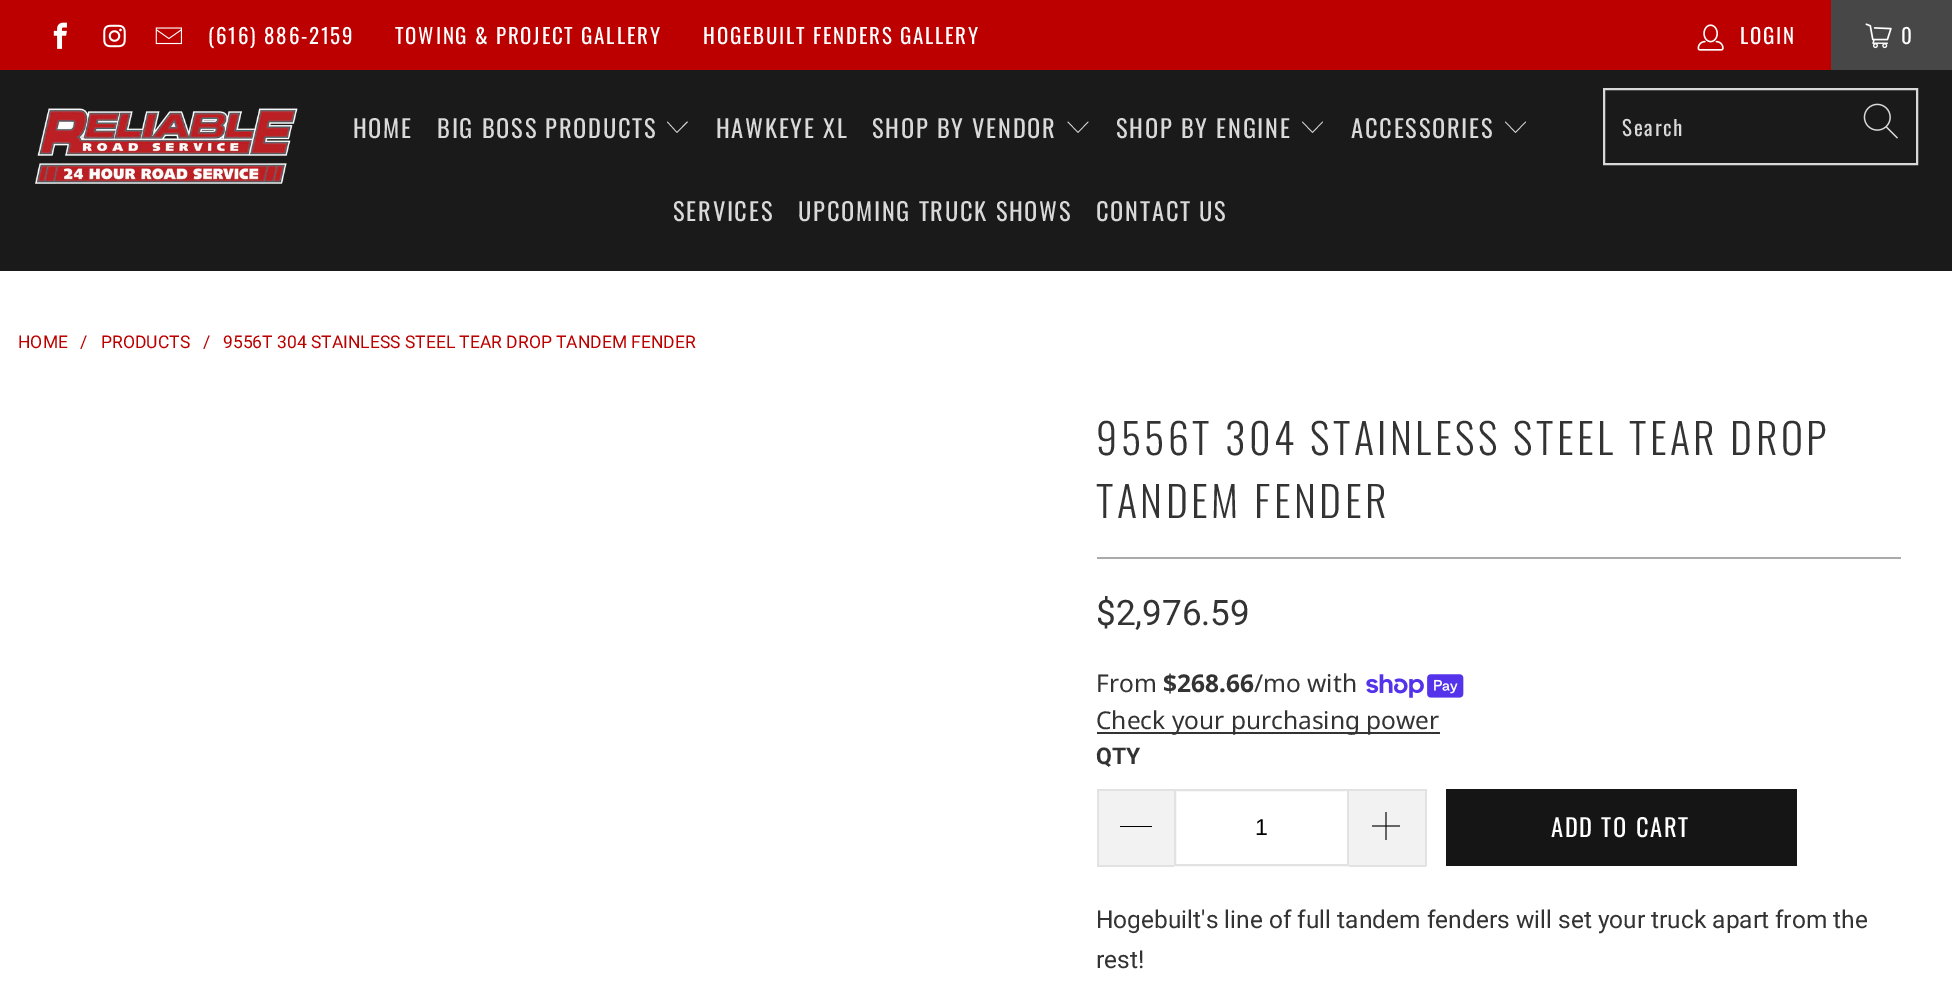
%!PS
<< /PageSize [1952 1001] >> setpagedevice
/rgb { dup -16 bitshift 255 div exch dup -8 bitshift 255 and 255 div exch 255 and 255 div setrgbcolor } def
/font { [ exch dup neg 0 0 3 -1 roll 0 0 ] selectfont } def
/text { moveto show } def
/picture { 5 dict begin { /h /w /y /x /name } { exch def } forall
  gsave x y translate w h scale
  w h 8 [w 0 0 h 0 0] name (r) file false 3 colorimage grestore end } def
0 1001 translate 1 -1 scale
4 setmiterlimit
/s1 { /Roboto-Regular 17.5 font 16#BC0000 rgb } def
/s2 { /Roboto-Regular 35 font 16#333333 rgb } def
/s3 { /NotoSans-Regular 24.5 font 16#333333 rgb } def
/s4 { /NotoSans-Bold 24.5 font 16#333333 rgb } def
/s5 { /Roboto-Bold 23 font 16#333333 rgb } def
/s6 { /LiberationSans-Regular 23 font 16#000000 rgb } def
/s7 { /Roboto-Regular 24.5 font 16#333333 rgb } def
16#FFFFFF rgb
0 0 1952 1001 rectfill
16#BC0000 rgb
0 0 1831 70 rectfill
(pic1.raw) 53 22 14 27 picture
(pic2.raw) 103 24 23 24 picture
(pic3.raw) 155 27 27 18 picture
/Oswald-Regular 21 font
16#FFFFFF rgb
208 44 moveto 1.75 0 (\(616\) 886-2159) ashow
395 44 moveto 1.75 0 (TOWING & PROJECT GALLERY) ashow
703 44 moveto 1.75 0 (HOGEBUILT FENDERS GALLERY) ashow
(pic4.raw) 1697 24 27 27 picture
1740 44 moveto 1.75 0 (LOGIN) ashow
16#474747 rgb
1831 0 121 70 rectfill
(pic5.raw) 1865 23 27 26 picture
16#FFFFFF rgb
1901 44 moveto 1.75 0 (0) ashow
16#1A1A1A rgb
0 70 1952 201 rectfill
(pic6.raw) 35 108 263 76 picture
/Oswald-Regular 24.5 font
16#D9D9D9 rgb
353 138 moveto 1.75 0 (HOME) ashow
437 138 moveto 1.75 0 (BIG BOSS PRODUCTS) ashow
677 133 moveto 667 122 lineto 667.5 121.5 lineto 677 132 lineto 687 121.5 lineto 688 122 lineto closepath fill
716 138 moveto 1.75 0 (HAWKEYE XL) ashow
872 138 moveto 1.75 0 (SHOP BY VENDOR) ashow
1078 133 moveto 1067.5 122 lineto 1068 121.5 lineto 1078 132 lineto 1088 121.5 lineto 1088.5 122 lineto closepath fill
1116 138 moveto 1.75 0 (SHOP BY ENGINE) ashow
1312.5 133 moveto 1302 122 lineto 1302.5 121.5 lineto 1312.5 132 lineto 1322.5 121.5 lineto 1323 122 lineto closepath fill
1351 138 moveto 1.75 0 (ACCESSORIES) ashow
1515.5 133 moveto 1505 122 lineto 1505.5 121.5 lineto 1515.5 132 lineto 1525.5 121.5 lineto 1526 122 lineto closepath fill
673 221 moveto 1.75 0 (SERVICES) ashow
798 221 moveto 1.75 0 (UPCOMING TRUCK SHOWS) ashow
1096 221 moveto 1.75 0 (CONTACT US) ashow
2 setlinewidth
1604 89 313 75 rectstroke
/Oswald-Regular 21 font
1622 136 moveto 1.75 0 (Search) ashow
(pic7.raw) 1863 103 35 36 picture
s1
(HOME) 18 348 text
(/) 80 348 text
(PRODUCTS) 101 348 text
(/) 203 348 text
(9556T 304 STAINLESS STEEL TEAR DROP TANDEM FENDER) 223 348 text
/Oswald-Light 42 font
16#333333 rgb
1096 455 moveto 3.5 0 (9556T 304 STAINLESS STEEL TEAR DROP) ashow
1096 518 moveto 3.5 0 (TANDEM FENDER) ashow
16#AAAAAA rgb
1097 557 804 2 rectfill
s2
($2,976.59) 1096 625 text
s3
(From) 1096 692 text
s4
($268.66) 1163 692 text
s3
(/mo with) 1254 692 text
(pic8.raw) 1366 674 98 24 picture
1097 732 343 2 rectfill
(Check your purchasing power) 1096 729 text
s5
(QTY) 1096 764 text
16#F2F2F2 rgb
1099 791 75 74 rectfill
16#E2E2E2 rgb
1097 789 77 2 rectfill
1097 865 77 2 rectfill
1097 789 2 77 rectfill
16#000000 rgb
1120 826 32 1 rectfill
16#E2E2E2 rgb
1175 790 173 75 rectstroke
s6
(1) 1255 835 text
16#F2F2F2 rgb
1349 791 76 74 rectfill
16#E2E2E2 rgb
1349 789 77 2 rectfill
1425 789 2 77 rectfill
1349 865 77 2 rectfill
(pic9.raw) 1372 812 28 28 picture
16#151515 rgb
1446 789 351 77 rectfill
/Oswald-Regular 24.5 font
16#FFFFFF rgb
1551 837 moveto 1.75 0 (ADD TO CART) ashow
s7
(Hogebuilt's line of full tandem fenders will set your truck apart from the) 1096 928 text
(rest!) 1096 968 text
showpage
